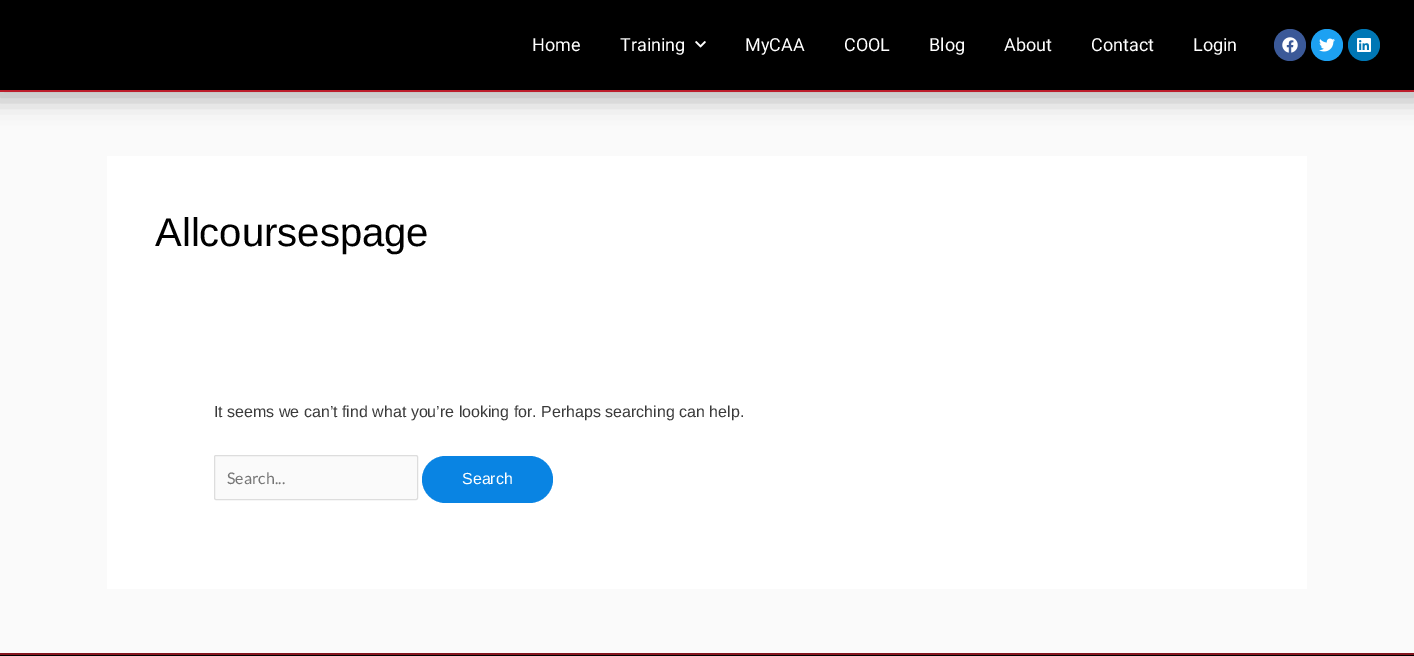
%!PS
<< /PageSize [1414 656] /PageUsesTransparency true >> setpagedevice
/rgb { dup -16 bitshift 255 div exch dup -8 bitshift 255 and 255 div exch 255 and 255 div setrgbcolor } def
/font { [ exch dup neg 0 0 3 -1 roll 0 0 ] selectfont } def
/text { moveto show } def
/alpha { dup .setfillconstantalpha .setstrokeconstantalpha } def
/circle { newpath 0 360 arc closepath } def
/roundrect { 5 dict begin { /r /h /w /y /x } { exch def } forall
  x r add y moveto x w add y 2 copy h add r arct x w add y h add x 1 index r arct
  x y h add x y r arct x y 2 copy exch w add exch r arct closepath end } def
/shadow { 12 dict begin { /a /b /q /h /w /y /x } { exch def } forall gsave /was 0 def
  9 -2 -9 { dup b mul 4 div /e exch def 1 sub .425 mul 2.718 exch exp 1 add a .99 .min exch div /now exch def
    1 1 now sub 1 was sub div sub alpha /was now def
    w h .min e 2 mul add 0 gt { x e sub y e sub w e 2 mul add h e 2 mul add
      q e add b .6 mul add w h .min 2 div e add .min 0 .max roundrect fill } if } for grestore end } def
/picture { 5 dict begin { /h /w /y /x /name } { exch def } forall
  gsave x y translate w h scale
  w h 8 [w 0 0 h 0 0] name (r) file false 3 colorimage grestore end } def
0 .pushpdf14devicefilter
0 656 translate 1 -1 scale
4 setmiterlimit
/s1 { /Roboto-Regular 18 font 16#FFFFFF rgb } def
/s2 { /LiberationSans-Regular 40 font 16#000000 rgb } def
/s3 { /LiberationSans-Regular 16 font 16#3A3A3A rgb } def
/s4 { /Lato-Regular 16 font 16#757575 rgb } def
/s5 { /LiberationSans-Regular 16 font 16#FFFFFF rgb } def
16#FAFAFA rgb
0 0 1414 656 rectfill
16#000000 rgb
-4 1 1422 100 0 11 0.25 shadow
0 0 1414 90 rectfill
16#BC1D2B rgb
0 90 1414 2 rectfill
s1
(Home) 532 51 text
(Training) 620 51 text
(pic1.raw) 695 41 11 7 picture
(MyCAA) 745 51 text
(COOL) 844 51 text
(Blog) 929 51 text
(About) 1004 51 text
(Contact) 1091 51 text
(Login) 1193 51 text
16#3B5998 rgb
1290 45 16 circle fill
(pic2.raw) 1282 37 16 16 picture
16#1DA1F2 rgb
1327 45 16 circle fill
(pic3.raw) 1319 38 16 14 picture
16#0077B5 rgb
1364 45 16 circle fill
(pic4.raw) 1357 38 14 14 picture
16#FFFFFF rgb
107 156 1200 433 rectfill
s2
(Allcoursespage) 155 246 text
s3
(It seems we can’t find what you’re looking for. Perhaps searching can help.) 214 417 text
16#FAFAFA rgb
214.5 455.5 203 44 1.5 roundrect gsave fill grestore
16#DDDDDD rgb
stroke
s4
(Search...) 227 484 text
16#0984E3 rgb
422 456 131 47 23.5 roundrect fill
s5
(Search) 462 484 text
16#000000 rgb
0 655 1414 1 rectfill
16#84161F rgb
0 653 1414 2 rectfill
.poppdf14devicefilter showpage
